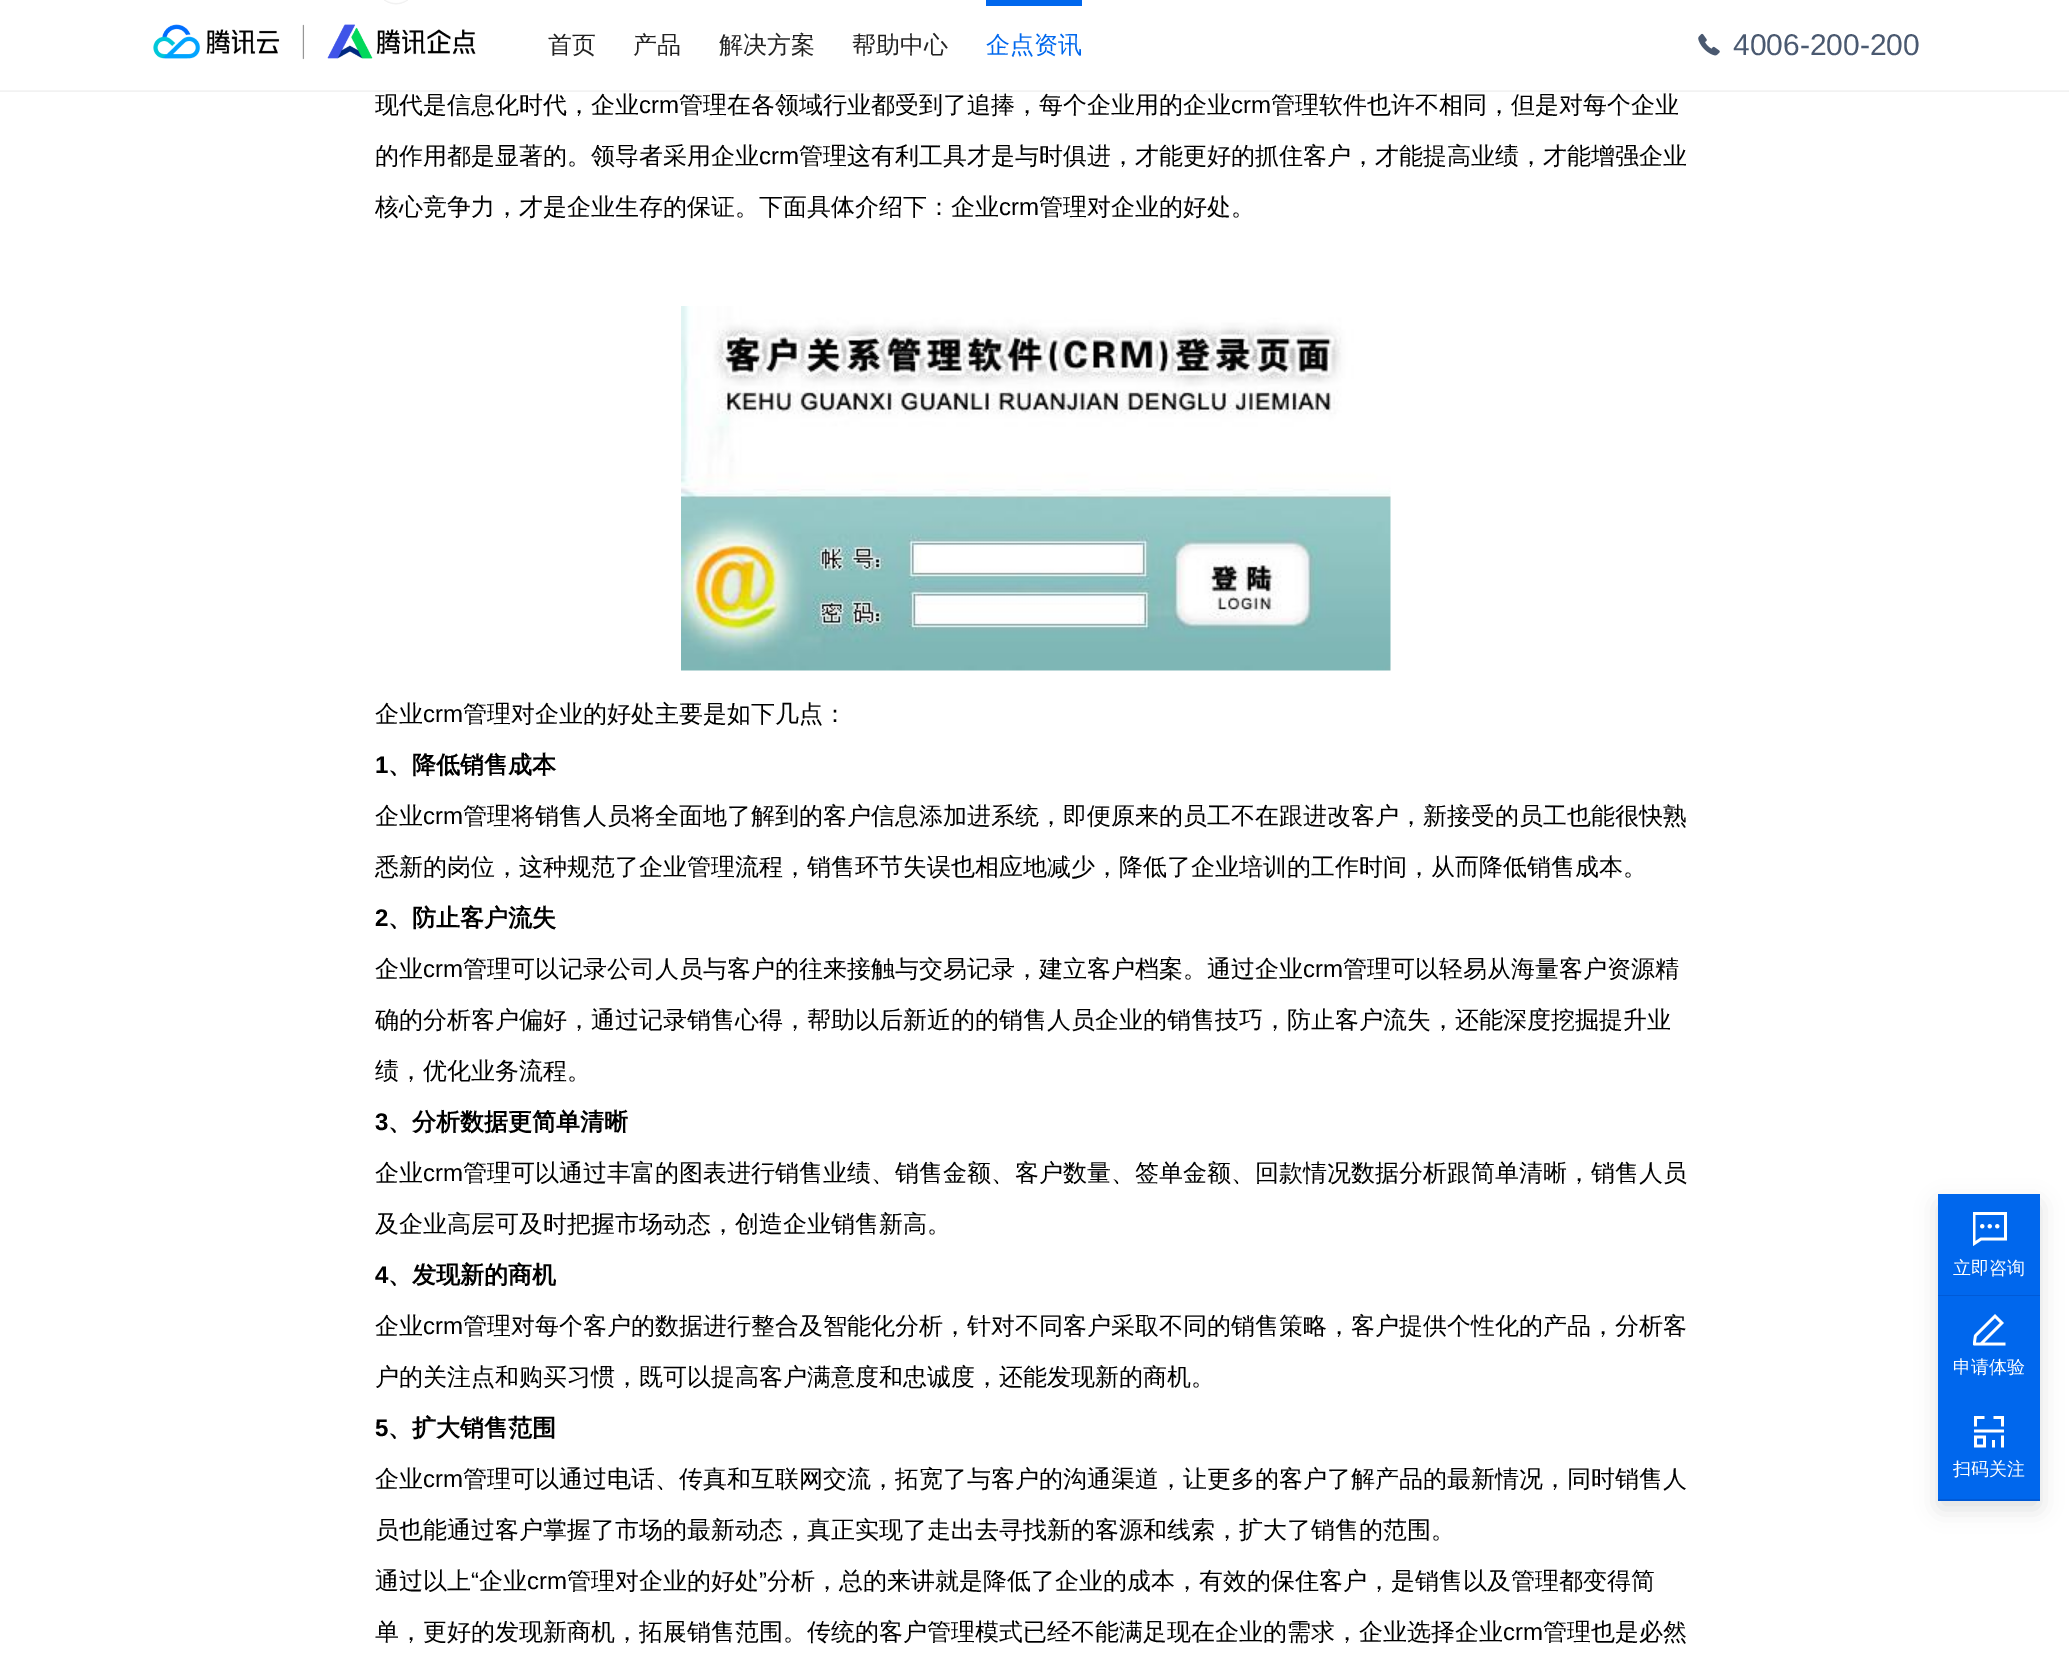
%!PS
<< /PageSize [2069 1680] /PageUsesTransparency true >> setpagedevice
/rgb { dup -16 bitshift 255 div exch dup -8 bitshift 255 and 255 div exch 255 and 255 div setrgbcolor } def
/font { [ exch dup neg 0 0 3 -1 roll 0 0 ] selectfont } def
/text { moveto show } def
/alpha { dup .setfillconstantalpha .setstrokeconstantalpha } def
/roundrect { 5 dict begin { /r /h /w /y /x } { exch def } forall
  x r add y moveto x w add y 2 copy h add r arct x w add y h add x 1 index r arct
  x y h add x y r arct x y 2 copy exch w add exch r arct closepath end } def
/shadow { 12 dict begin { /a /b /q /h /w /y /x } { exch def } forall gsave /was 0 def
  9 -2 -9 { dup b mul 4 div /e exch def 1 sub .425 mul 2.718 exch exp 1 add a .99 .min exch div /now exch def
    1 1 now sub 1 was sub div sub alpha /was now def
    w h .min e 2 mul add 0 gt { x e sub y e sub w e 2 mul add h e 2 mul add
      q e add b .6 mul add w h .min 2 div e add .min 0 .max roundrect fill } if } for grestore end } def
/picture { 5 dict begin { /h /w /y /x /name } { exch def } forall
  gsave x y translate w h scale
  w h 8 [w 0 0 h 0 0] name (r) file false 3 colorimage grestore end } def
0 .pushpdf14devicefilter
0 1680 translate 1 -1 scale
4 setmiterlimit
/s1 { /WenQuanYiZenHei-Medium 24 font 16#222222 rgb } def
/s2 { /WenQuanYiZenHei-Medium 24 font 16#0067ED rgb } def
/s3 { /LiberationSans-Regular 30 font 16#4A5970 rgb } def
/s4 { /WenQuanYiZenHei-Medium 24 font 16#000000 rgb } def
/s5 { /LiberationSans-Regular 24 font 16#000000 rgb } def
/s6 { /LiberationSans-Bold 24 font 16#000000 rgb } def
/s7 { /WenQuanYiZenHei-Bold 24 font 16#000000 rgb } def
/s8 { /WenQuanYiZenHei-Medium 18 font 16#FFFFFF rgb } def
16#FFFFFF rgb
0 0 2069 1680 rectfill
16#F2F2F2 rgb
0 91 2069 1 rectfill
16#F5F5F5 rgb
0 90 2069 1 rectfill
(pic1.raw) 153 24 323 36 picture
s1
(首页) 548 53 text
(产品) 633 53 text
(解决方案) 719 53 text
(帮助中心) 852 53 text
16#0067ED rgb
986 0 96 6 rectfill
(企点资讯) 986 53 text
(pic2.raw) 1698 33 22 23 picture
s3
(4006-200-200) 1733 55 text
(pic3.raw) 384 0 24 5 picture
s4
(现代是信息化时代，企业) 375 113 text
s5
(crm) 639 113 text
s4
(管理在各领域行业都受到了追捧，每个企业用的企业) 679 113 text
s5
(crm) 1231 113 text
s4
(管理软件也许不相同，但是对每个企业) 1271 113 text
(的作用都是显著的。领导者采用企业) 375 164 text
s5
(crm) 759 164 text
s4
(管理这有利工具才是与时俱进，才能更好的抓住客户，才能提高业绩，才能增强企业) 799 164 text
(核心竞争力，才是企业生存的保证。下面具体介绍下：企业) 375 215 text
s5
(crm) 999 215 text
s4
(管理对企业的好处。) 1039 215 text
(pic4.raw) 681 306 710 365 picture
(企业) 375 722 text
s5
(crm) 423 722 text
s4
(管理对企业的好处主要是如下几点：) 463 722 text
s6
(1) 375 773 text
s7
(、降低销售成本) 388 773 text
s4
(企业) 375 824 text
s5
(crm) 423 824 text
s4
(管理将销售人员将全面地了解到的客户信息添加进系统，即便原来的员工不在跟进改客户，新接受的员工也能很快熟) 463 824 text
(悉新的岗位，这种规范了企业管理流程，销售环节失误也相应地减少，降低了企业培训的工作时间，从而降低销售成本。) 375 875 text
s6
(2) 375 926 text
s7
(、防止客户流失) 388 926 text
s4
(企业) 375 977 text
s5
(crm) 423 977 text
s4
(管理可以记录公司人员与客户的往来接触与交易记录，建立客户档案。通过企业) 463 977 text
s5
(crm) 1303 977 text
s4
(管理可以轻易从海量客户资源精) 1343 977 text
(确的分析客户偏好，通过记录销售心得，帮助以后新近的的销售人员企业的销售技巧，防止客户流失，还能深度挖掘提升业) 375 1028 text
(绩，优化业务流程。) 375 1079 text
s6
(3) 375 1130 text
s7
(、分析数据更简单清晰) 388 1130 text
s4
(企业) 375 1181 text
s5
(crm) 423 1181 text
s4
(管理可以通过丰富的图表进行销售业绩、销售金额、客户数量、签单金额、回款情况数据分析跟简单清晰，销售人员) 463 1181 text
(及企业高层可及时把握市场动态，创造企业销售新高。) 375 1232 text
s6
(4) 375 1283 text
s7
(、发现新的商机) 388 1283 text
s4
(企业) 375 1334 text
s5
(crm) 423 1334 text
s4
(管理对每个客户的数据进行整合及智能化分析，针对不同客户采取不同的销售策略，客户提供个性化的产品，分析客) 463 1334 text
(户的关注点和购买习惯，既可以提高客户满意度和忠诚度，还能发现新的商机。) 375 1385 text
s6
(5) 375 1436 text
s7
(、扩大销售范围) 388 1436 text
s4
(企业) 375 1487 text
s5
(crm) 423 1487 text
s4
(管理可以通过电话、传真和互联网交流，拓宽了与客户的沟通渠道，让更多的客户了解产品的最新情况，同时销售人) 463 1487 text
(员也能通过客户掌握了市场的最新动态，真正实现了走出去寻找新的客源和线索，扩大了销售的范围。) 375 1538 text
(通过以上) 375 1589 text
s5
(“) 471 1589 text
s4
(企业) 479 1589 text
(管理对企业的好处) 567 1589 text
s5
(”) 759 1589 text
s4
(分析，总的来讲就是降低了企业的成本，有效的保住客户，是销售以及管理都变得简) 767 1589 text
s5
(crm) 527 1589 text
s4
(单，更好的发现新商机，拓展销售范围。传统的客户管理模式已经不能满足现在企业的需求，企业选择企业) 375 1640 text
s5
(crm) 1503 1640 text
s4
(管理也是必然) 1543 1640 text
16#060C13 rgb
1938 1203 102 306 3 11 0.14 shadow
16#0067ED rgb
1938 1194 102 101 rectfill
16#005AD7 rgb
1938 1295 102 1 rectfill
(pic5.raw) 1973 1212 34 34 picture
s8
(立即咨询) 1953 1274 text
16#0067ED rgb
1938 1296 102 203 rectfill
(pic6.raw) 1973 1314 33 32 picture
s8
(申请体验) 1953 1373 text
16#005AD7 rgb
1938 1499 102 2 rectfill
(pic7.raw) 1974 1416 30 32 picture
s8
(扫码关注) 1953 1475 text
.poppdf14devicefilter showpage
